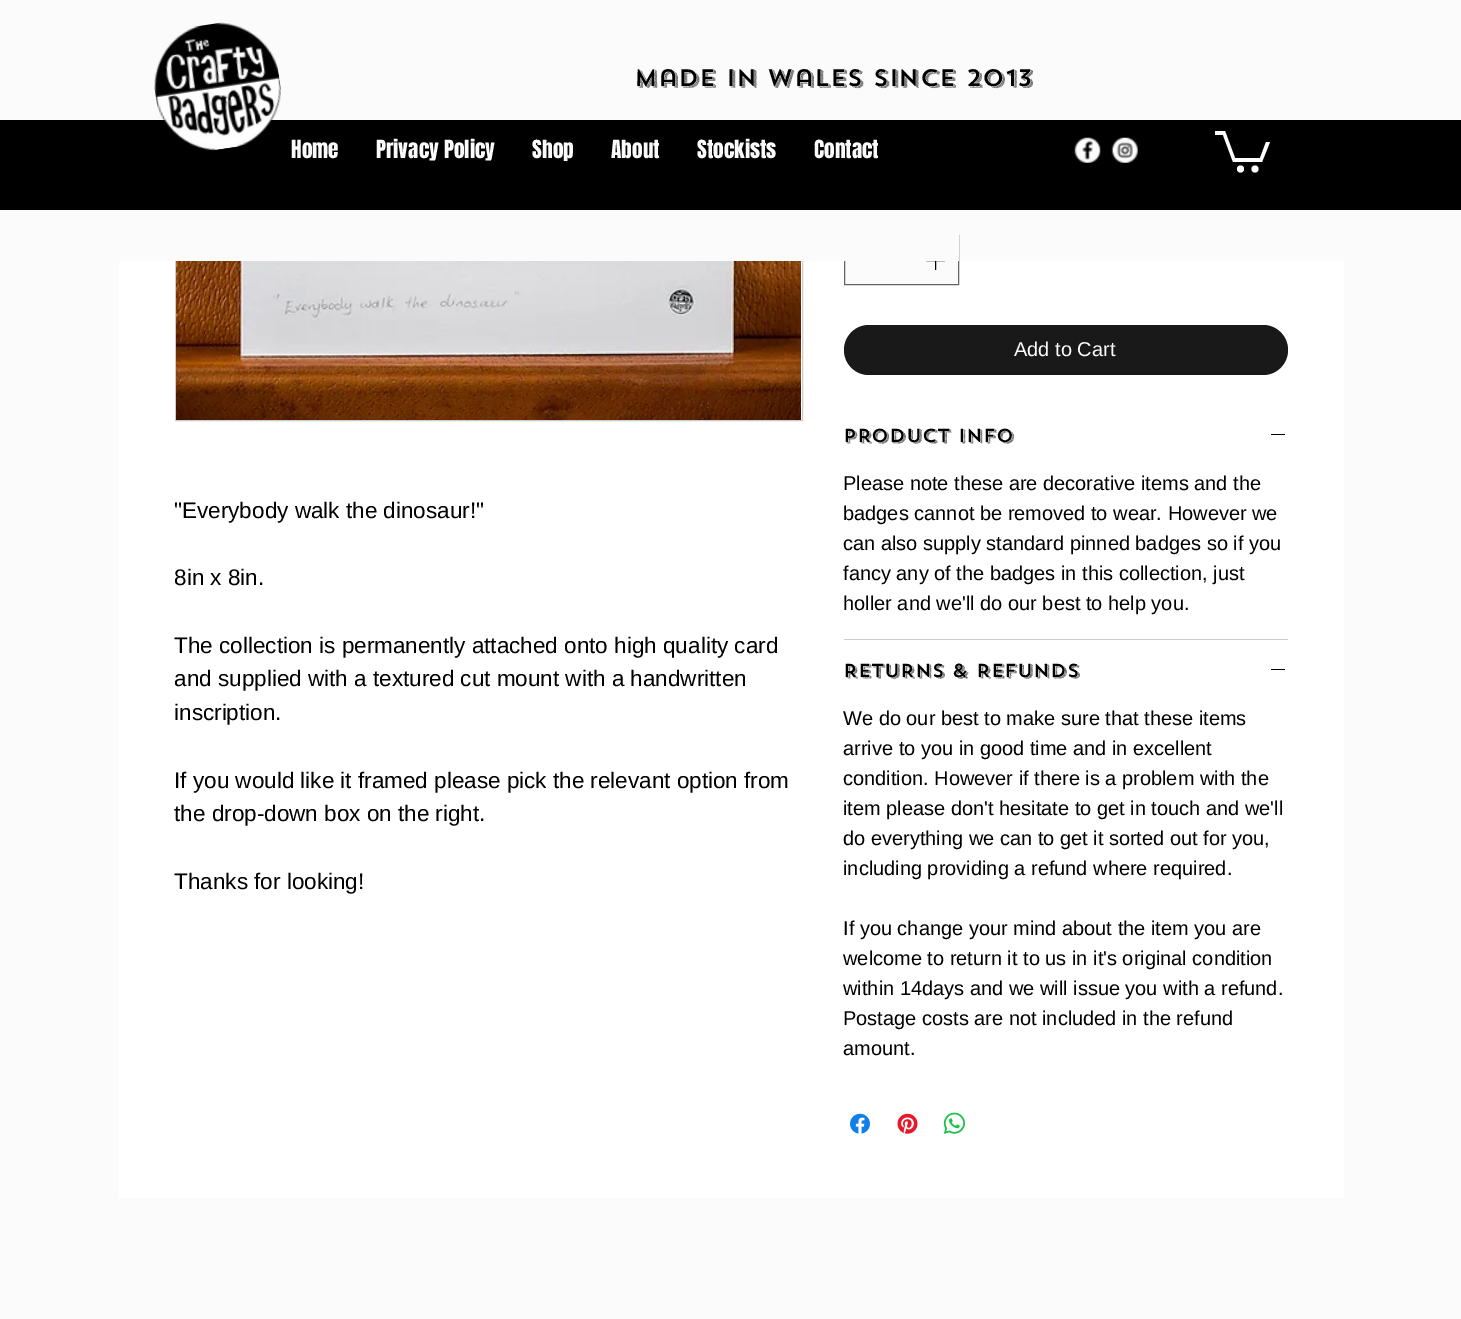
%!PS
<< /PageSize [1461 1319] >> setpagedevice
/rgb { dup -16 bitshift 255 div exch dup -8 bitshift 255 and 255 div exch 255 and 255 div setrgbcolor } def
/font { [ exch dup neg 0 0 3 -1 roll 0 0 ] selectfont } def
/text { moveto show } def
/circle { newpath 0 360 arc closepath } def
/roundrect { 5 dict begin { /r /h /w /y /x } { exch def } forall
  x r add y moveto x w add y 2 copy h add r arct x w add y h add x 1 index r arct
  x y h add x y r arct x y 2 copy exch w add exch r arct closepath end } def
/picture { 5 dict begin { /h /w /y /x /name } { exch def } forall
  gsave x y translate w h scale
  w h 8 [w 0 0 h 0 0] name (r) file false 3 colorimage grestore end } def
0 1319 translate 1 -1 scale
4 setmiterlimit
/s1 { /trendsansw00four-Medium 23.75 font 16#000000 rgb } def
/s2 { /Anton-Regular 21.25 font 16#FBFBFB rgb } def
/s3 { /LiberationSans-Regular 22.5 font 16#000000 rgb } def
/s4 { /LiberationSans-Regular 20 font 16#FBFBFB rgb } def
/s5 { /trendsansw00four-Medium 18.75 font 16#000000 rgb } def
/s6 { /LiberationSans-Regular 20 font 16#000000 rgb } def
16#FBFBFB rgb
0 0 1461 1319 rectfill
16#FFFFFF rgb
119 261 1225 937 rectfill
16#CCCCCC rgb
175.5 -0.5 627 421 rectstroke
16#FBFBFB rgb
845 261 113 23 rectfill
16#646464 rgb
844.5 235.5 114 49 rectstroke
16#FBFBFB rgb
175 0 784 261 rectfill
16#000000 rgb
0 120 1461 90 rectfill
(pic1.raw) 154 22 127 129 picture
s1
(Made in wales since 2013) 634 86 text
s2
(Home) 291 158 text
(Privacy Policy) 376 158 text
(Shop) 532 158 text
(About) 611 158 text
(Stockists) 697 158 text
(Contact) 814 158 text
(pic2.raw) 1074 137 27 26 picture
(pic3.raw) 1111 137 27 26 picture
16#FFFFFF rgb
1270 142 moveto 1262 162 lineto 1233 162 lineto 1223 135 lineto 1215 135 lineto 1215 131 lineto 1225 131 lineto 1235 158 lineto 1260 158 lineto 1266 142 lineto fill
1255 169 3.5 circle fill
1240.5 169 3.5 circle fill
(pic4.raw) 176 261 625 159 picture
s3
("Everybody walk the dinosaur!") 174 518 text
(8in x 8in.) 174 585 text
(The collection is permanently attached onto high quality card) 174 653 text
(and supplied with a textured cut mount with a handwritten) 174 686 text
(inscription.) 174 720 text
(If you would like it framed please pick the relevant option from) 174 788 text
(the drop-down box on the right.) 174 821 text
(Thanks for looking!) 174 889 text
(pic5.raw) 926 261 19 9 picture
16#191919 rgb
844 325 444 50 25 roundrect fill
s4
(Add to Cart) 1014 356 text
16#CCCCCC rgb
844 639 444 1 rectfill
s5
(PRODUCT INFO) 843 442 text
1271 434 14 1 rectfill
s6
(Please note these are decorative items and the) 843 490 text
(badges cannot be removed to wear. However we) 843 520 text
(can also supply standard pinned badges so if you) 843 550 text
(fancy any of the badges in this collection, just) 843 580 text
(holler and we'll do our best to help you.) 843 610 text
s5
(RETURNS & REFUNDS) 843 677 text
1271 669 14 1 rectfill
s6
(We do our best to make sure that these items) 843 725 text
(arrive to you in good time and in excellent) 843 755 text
(condition. However if there is a problem with the) 843 785 text
(item please don't hesitate to get in touch and we'll) 843 815 text
(do everything we can to get it sorted out for you,) 843 845 text
(including providing a refund where required.) 843 875 text
(If you change your mind about the item you are) 843 935 text
(welcome to return it to us in it's original condition) 843 965 text
(within 14days and we will issue you with a refund.) 843 995 text
(Postage costs are not included in the refund) 843 1025 text
(amount.) 843 1055 text
(pic6.raw) 850 1113 20 21 picture
(pic7.raw) 897 1113 21 21 picture
(pic8.raw) 943 1112 22 22 picture
showpage
